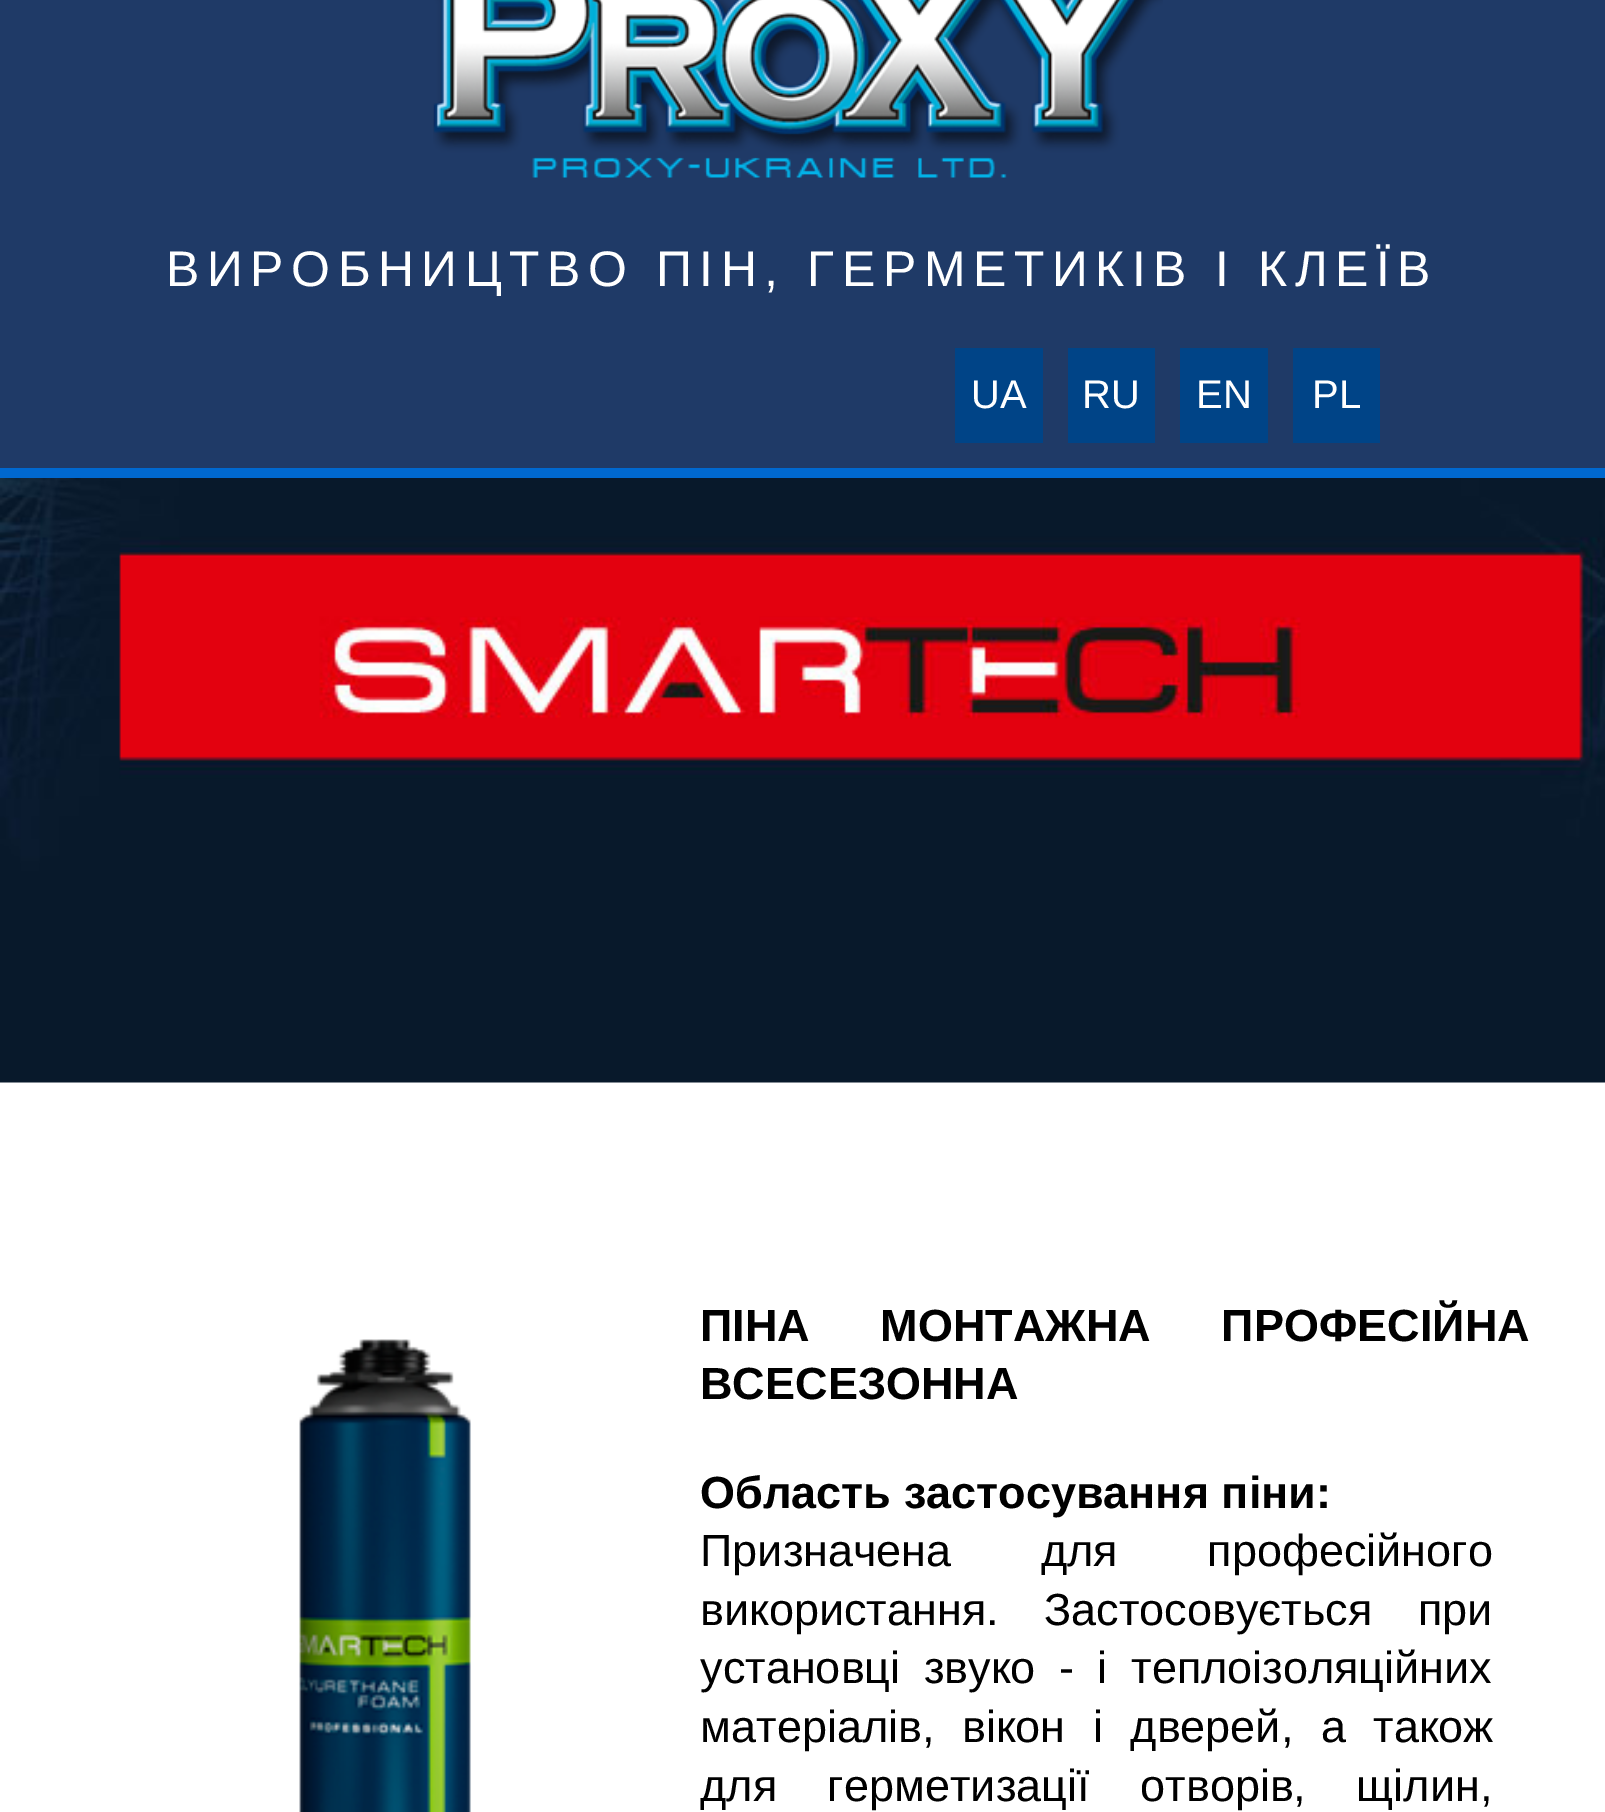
%!PS
<< /PageSize [1605 1812] >> setpagedevice
/rgb { dup -16 bitshift 255 div exch dup -8 bitshift 255 and 255 div exch 255 and 255 div setrgbcolor } def
/font { [ exch dup neg 0 0 3 -1 roll 0 0 ] selectfont } def
/text { moveto show } def
/picture { 5 dict begin { /h /w /y /x /name } { exch def } forall
  gsave x y translate w h scale
  w h 8 [w 0 0 h 0 0] name (r) file false 3 colorimage grestore end } def
0 1812 translate 1 -1 scale
4 setmiterlimit
/s1 { /LiberationSans-Regular 40 font 16#FFFFFF rgb } def
/s2 { /LiberationSans-Bold 45 font 16#000000 rgb } def
16#FFFFFF rgb
0 0 1605 1812 rectfill
16#1F3A67 rgb
0 0 1605 468 rectfill
16#0068CF rgb
0 468 1605 10 rectfill
(pic1.raw) 433 0 730 178 picture
/LiberationSans-Regular 50 font
16#FFFFFF rgb
166 286 moveto 7.5 0 (ВИРОБНИЦТВО ПІН, ГЕРМЕТИКІВ І КЛЕЇВ) ashow
16#004487 rgb
955 348 88 95 rectfill
s1
(UA) 971 408 text
16#004487 rgb
1068 348 87 95 rectfill
s1
(RU) 1082 408 text
16#004487 rgb
1180 348 88 95 rectfill
s1
(EN) 1196 408 text
16#004487 rgb
1293 348 87 95 rectfill
s1
(PL) 1312 408 text
(pic2.raw) 0 478 1605 605 picture
(pic3.raw) 299 1339 172 473 picture
/LiberationSans-Bold 45 font
16#000000 rgb
700 1341 moveto 58 0 32 (ПІНА МОНТАЖНА ПРОФЕСІЙНА) widthshow
(ВСЕСЕЗОННА) 700 1399 text
(Область застосування піни:) 700 1508 text
/LiberationSans-Regular 45 font
700 1566 moveto 77 0 32 (Призначена для професійного) widthshow
700 1625 moveto 33 0 32 (використання. Застосовується при) widthshow
700 1683 moveto 11 0 32 (установці звуко - і теплоізоляційних) widthshow
700 1742 moveto 15 0 32 (матеріалів, вікон і дверей, а також) widthshow
700 1801 moveto 38 0 32 (для герметизації отворів, щілин,) widthshow
showpage
